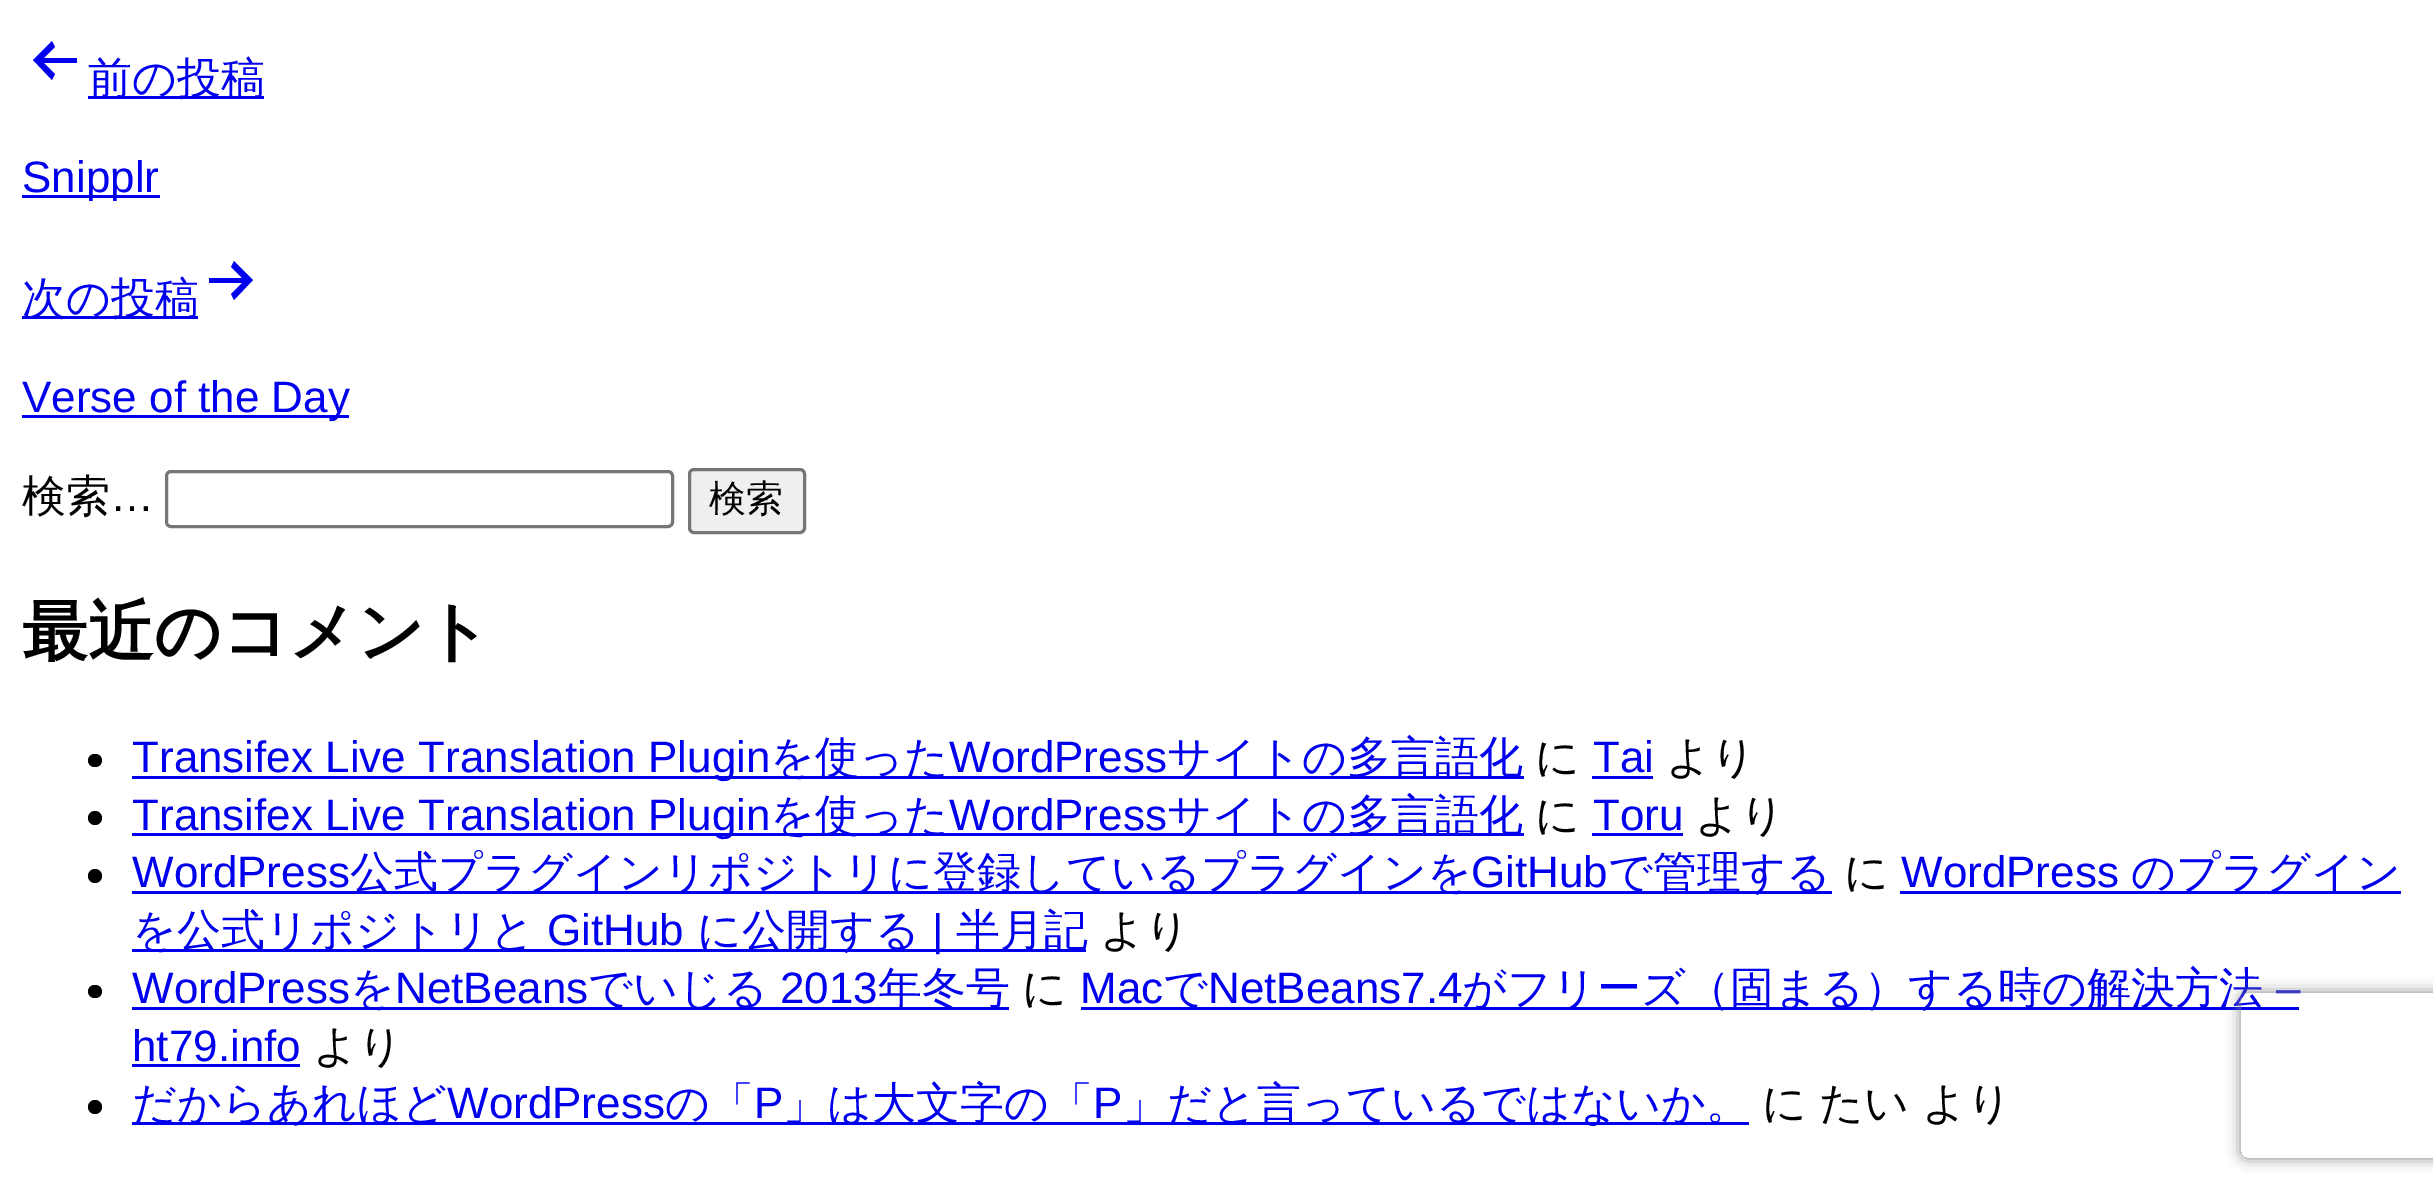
%!PS
<< /PageSize [2433 1194] /PageUsesTransparency true >> setpagedevice
/rgb { dup -16 bitshift 255 div exch dup -8 bitshift 255 and 255 div exch 255 and 255 div setrgbcolor } def
/font { [ exch dup neg 0 0 3 -1 roll 0 0 ] selectfont } def
/text { moveto show } def
/alpha { dup .setfillconstantalpha .setstrokeconstantalpha } def
/circle { newpath 0 360 arc closepath } def
/roundrect { 5 dict begin { /r /h /w /y /x } { exch def } forall
  x r add y moveto x w add y 2 copy h add r arct x w add y h add x 1 index r arct
  x y h add x y r arct x y 2 copy exch w add exch r arct closepath end } def
/shadow { 12 dict begin { /a /b /q /h /w /y /x } { exch def } forall gsave /was 0 def
  9 -2 -9 { dup b mul 4 div /e exch def 1 sub .425 mul 2.718 exch exp 1 add a .99 .min exch div /now exch def
    1 1 now sub 1 was sub div sub alpha /was now def
    w h .min e 2 mul add 0 gt { x e sub y e sub w e 2 mul add h e 2 mul add
      q e add b .6 mul add w h .min 2 div e add .min 0 .max roundrect fill } if } for grestore end } def
0 .pushpdf14devicefilter
0 1194 translate 1 -1 scale
4 setmiterlimit
/s1 { /WenQuanYiZenHei-Medium 44 font 16#0000EE rgb } def
/s2 { /LiberationSans-Regular 44 font 16#0000EE rgb } def
/s3 { /WenQuanYiZenHei-Medium 44 font 16#000000 rgb } def
/s4 { /LiberationSans-Regular 44 font 16#000000 rgb } def
/s5 { /WenQuanYiZenHei-Medium 37 font 16#000000 rgb } def
/s6 { /WenQuanYiZenHei-Bold 66 font 16#000000 rgb } def
16#FFFFFF rgb
0 0 2433 1194 rectfill
16#0000EE rgb
77 63 moveto 77 58 lineto 44 58 lineto 55 47 lineto 52 41 lineto 33 60 lineto 52 80 lineto 55 74 lineto 44 63 lineto closepath eofill
88 96 176 3 rectfill
s1
(前の投稿) 88 93 text
22 195 138 3 rectfill
s2
(Snipplr) 22 192 text
22 316 176 3 rectfill
s1
(次の投稿) 22 313 text
209 283 moveto 209 278 lineto 242 278 lineto 231 267 lineto 234 261 lineto 253 280 lineto 234 300 lineto 231 294 lineto 242 283 lineto closepath eofill
22 415 327 3 rectfill
s2
(Verse of the Day) 22 412 text
s3
(検索) 22 511 text
s4
(…) 110 511 text
16#767676 rgb
3 setlinewidth
166.5 471.5 506 55 4.5 roundrect stroke
16#EFEFEF rgb
689.5 469.5 115 63 4.5 roundrect gsave fill grestore
16#767676 rgb
stroke
s5
(検索) 709 511 text
s6
(最近のコメント) 22 654 text
88 754 14 13 6.5 roundrect fill
16#0000EE rgb
132 776 1392 3 rectfill
s2
(Transifex Live Translation Plugin) 132 772 text
s1
(を使った) 770 772 text
s2
(WordPress) 949 772 text
s1
(サイトの多言語化) 1167 772 text
s3
(に) 1535 772 text
s2
(Tai) 1593 772 text
1592 776 61 3 rectfill
s3
(より) 1666 772 text
95 818 7 circle fill
16#0000EE rgb
132 833 1392 3 rectfill
s2
(Transifex Live Translation Plugin) 132 830 text
s1
(を使った) 770 830 text
s2
(WordPress) 949 830 text
s1
(サイトの多言語化) 1167 830 text
s3
(に) 1535 830 text
s2
(Toru) 1593 830 text
1592 833 91 3 rectfill
s3
(より) 1695 830 text
95 876 7 circle fill
s2
(WordPress) 132 887 text
132 891 1700 3 rectfill
s1
(公式プラグインリポジトリに登録しているプラグインを) 350 887 text
s2
(GitHub) 1471 887 text
s1
(で管理する) 1608 887 text
s3
(に) 1844 887 text
s2
(WordPress) 1901 887 text
1900 891 501 3 rectfill
s1
(のプラグイン) 2131 887 text
132 949 954 3 rectfill
(を公式リポジトリと) 132 945 text
s2
(GitHub) 547 945 text
s1
(に公開する) 697 945 text
s2
(|) 932 945 text
s1
(半月記) 956 945 text
s3
(より) 1100 945 text
88 985 14 13 6.5 roundrect fill
s2
(WordPress) 132 1003 text
132 1007 877 3 rectfill
s1
(を) 350 1003 text
s2
(NetBeans) 395 1003 text
s1
(でいじる) 588 1003 text
s2
(2013) 780 1003 text
s1
(年冬号) 878 1003 text
s3
(に) 1022 1003 text
s2
(Mac) 1080 1003 text
1081 1007 1218 3 rectfill
s1
(で) 1163 1003 text
s2
(NetBeans7.4) 1208 1003 text
s1
(がフリーズ（固まる）する時の解決方法) 1462 1003 text
s2
(–) 2276 1003 text
(ht79.info) 132 1061 text
132 1064 168 3 rectfill
s3
(より) 313 1061 text
95 1107 7 circle fill
16#0000EE rgb
132 1122 1617 3 rectfill
(だからあれほど) 132 1118 text
s2
(WordPress) 447 1118 text
s1
(の「) 665 1118 text
s2
(P) 754 1118 text
s1
(」は大文字の「) 783 1118 text
s2
(P) 1093 1118 text
s1
(」だと言っているではないか。) 1123 1118 text
s3
(に) 1762 1118 text
(たい) 1819 1118 text
(より) 1922 1118 text
gsave
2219 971 moveto 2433 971 lineto 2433 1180 lineto 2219 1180 lineto closepath 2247 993 moveto 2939 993 lineto 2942.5 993 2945 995.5 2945 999 curveto 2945 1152 lineto 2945 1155.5 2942.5 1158 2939 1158 curveto 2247 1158 lineto 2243.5 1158 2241 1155.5 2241 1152 curveto 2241 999 lineto 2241 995.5 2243.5 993 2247 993 curveto closepath eoclip newpath
16#808080 rgb
2241 993 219 165 6 7 1 shadow
grestore
.poppdf14devicefilter showpage
